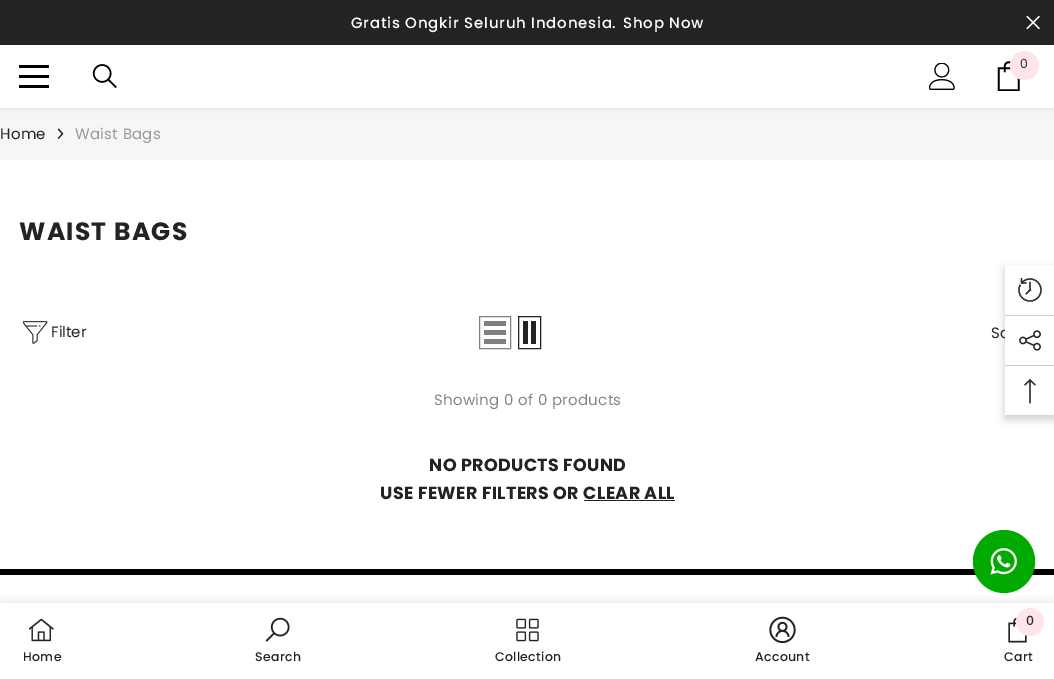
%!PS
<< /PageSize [1054 679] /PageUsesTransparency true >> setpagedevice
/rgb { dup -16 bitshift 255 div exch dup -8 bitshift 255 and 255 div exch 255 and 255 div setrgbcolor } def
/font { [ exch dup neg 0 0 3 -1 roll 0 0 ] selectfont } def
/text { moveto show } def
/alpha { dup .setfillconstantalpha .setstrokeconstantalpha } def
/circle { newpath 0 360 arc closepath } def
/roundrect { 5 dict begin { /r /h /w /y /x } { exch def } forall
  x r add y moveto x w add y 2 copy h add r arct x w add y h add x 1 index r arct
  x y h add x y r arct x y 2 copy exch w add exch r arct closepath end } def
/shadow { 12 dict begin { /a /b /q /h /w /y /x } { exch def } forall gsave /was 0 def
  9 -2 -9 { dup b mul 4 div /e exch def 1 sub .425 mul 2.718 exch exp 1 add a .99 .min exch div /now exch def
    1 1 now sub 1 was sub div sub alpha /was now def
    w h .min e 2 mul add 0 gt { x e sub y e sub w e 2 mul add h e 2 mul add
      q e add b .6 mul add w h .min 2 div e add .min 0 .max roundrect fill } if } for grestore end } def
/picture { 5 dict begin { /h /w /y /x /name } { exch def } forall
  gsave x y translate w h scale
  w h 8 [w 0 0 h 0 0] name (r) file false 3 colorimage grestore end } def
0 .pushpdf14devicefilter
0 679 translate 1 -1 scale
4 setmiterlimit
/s1 { /Poppins-Regular 12.5 font 16#323232 rgb } def
/s2 { /Poppins-Regular 15 font 16#232323 rgb } def
/s3 { /Poppins-Medium 12.5 font 16#323232 rgb } def
16#FFFFFF rgb
0 0 1054 679 rectfill
16#232323 rgb
0 0 1054 45 rectfill
/Poppins-Medium 15 font
16#FFFFFF rgb
351 28 moveto 0.75 0 (Gratis Ongkir Seluruh Indonesia.) ashow
623 28 moveto 0.75 0 (Shop Now) ashow
(pic1.raw) 1026 15 14 15 picture
16#F6F6F6 rgb
0 108 1054 52 rectfill
16#000000 rgb
0 46 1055 63 0 2 0.1 shadow
16#FFFFFF rgb
0 45 1054 63 rectfill
(pic2.raw) 929 63 26 27 picture
(pic3.raw) 997 61 23 30 picture
16#FFE5E8 rgb
1024.5 65.5 14.5 circle fill
s1
(0) 1020 68 text
16#000000 rgb
19 75 30 3 rectfill
19 65 30 3 rectfill
19 85 30 3 rectfill
(pic4.raw) 92 64 25 25 picture
/Poppins-Regular 15 font
16#232323 rgb
0 139 moveto 0.3 0 (Home) ashow
(pic5.raw) 57 128 7 11 picture
16#999999 rgb
75 139 moveto 0.3 0 (Waist Bags) ashow
/Poppins-Bold 25 font
16#232323 rgb
19 240 moveto 1.25 0 (WAIST BAGS) ashow
(pic6.raw) 23 321 25 23 picture
s2
(Filter) 51 337 text
16#808080 rgb
479.5 316.5 31 32 rectstroke
484 339 22 5 rectfill
484 330 22 5 rectfill
484 321 22 5 rectfill
16#232323 rgb
518.5 316.5 22 32 rectstroke
531 321 5 23 rectfill
523 321 5 23 rectfill
(So) 991 338 text
16#868686 rgb
434 405 moveto 0.3 0 (Showing 0 of 0 products) ashow
/Poppins-Bold 17.5 font
16#232323 rgb
429 471 moveto 0.35 0 (NO PRODUCTS FOUND) ashow
380 499 moveto 0.35 0 (USE FEWER FILTERS OR CLEAR ALL) ashow
584 500 91 1 rectfill
16#000000 rgb
0 569 1054 6 rectfill
0 603 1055 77 0 5.5 0.12 shadow
16#FFFFFF rgb
0 603 1054 76 rectfill
(pic7.raw) 29 618 25 24 picture
/Poppins-Medium 12.5 font
16#232323 rgb
23 661 moveto 0.3 0 (Home) ashow
(pic8.raw) 265 617 25 25 picture
255 661 moveto 0.3 0 (Search) ashow
(pic9.raw) 516 618 23 24 picture
495 661 moveto 0.3 0 (Collection) ashow
(pic10.raw) 769 616 27 28 picture
755 661 moveto 0.3 0 (Account) ashow
(pic11.raw) 1008 618 19 25 picture
16#FFE5E8 rgb
1030 622 14 circle fill
s3
(0) 1026 625 text
16#232323 rgb
1004 661 moveto 0.3 0 (Cart) ashow
16#000000 rgb
1005 269 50 150 0 4.5 0.2 shadow
16#FFFFFF rgb
1005 265 49 150 rectfill
(pic12.raw) 1018 278 24 24 picture
16#CCCCCC rgb
1005 315 49 1 rectfill
(pic13.raw) 1019 330 22 21 picture
1005 365 49 1 rectfill
(pic14.raw) 1024 379 12 25 picture
16#00AA00 rgb
973 530 62 63 31 roundrect fill
(pic15.raw) 990 548 27 27 picture
.poppdf14devicefilter showpage
